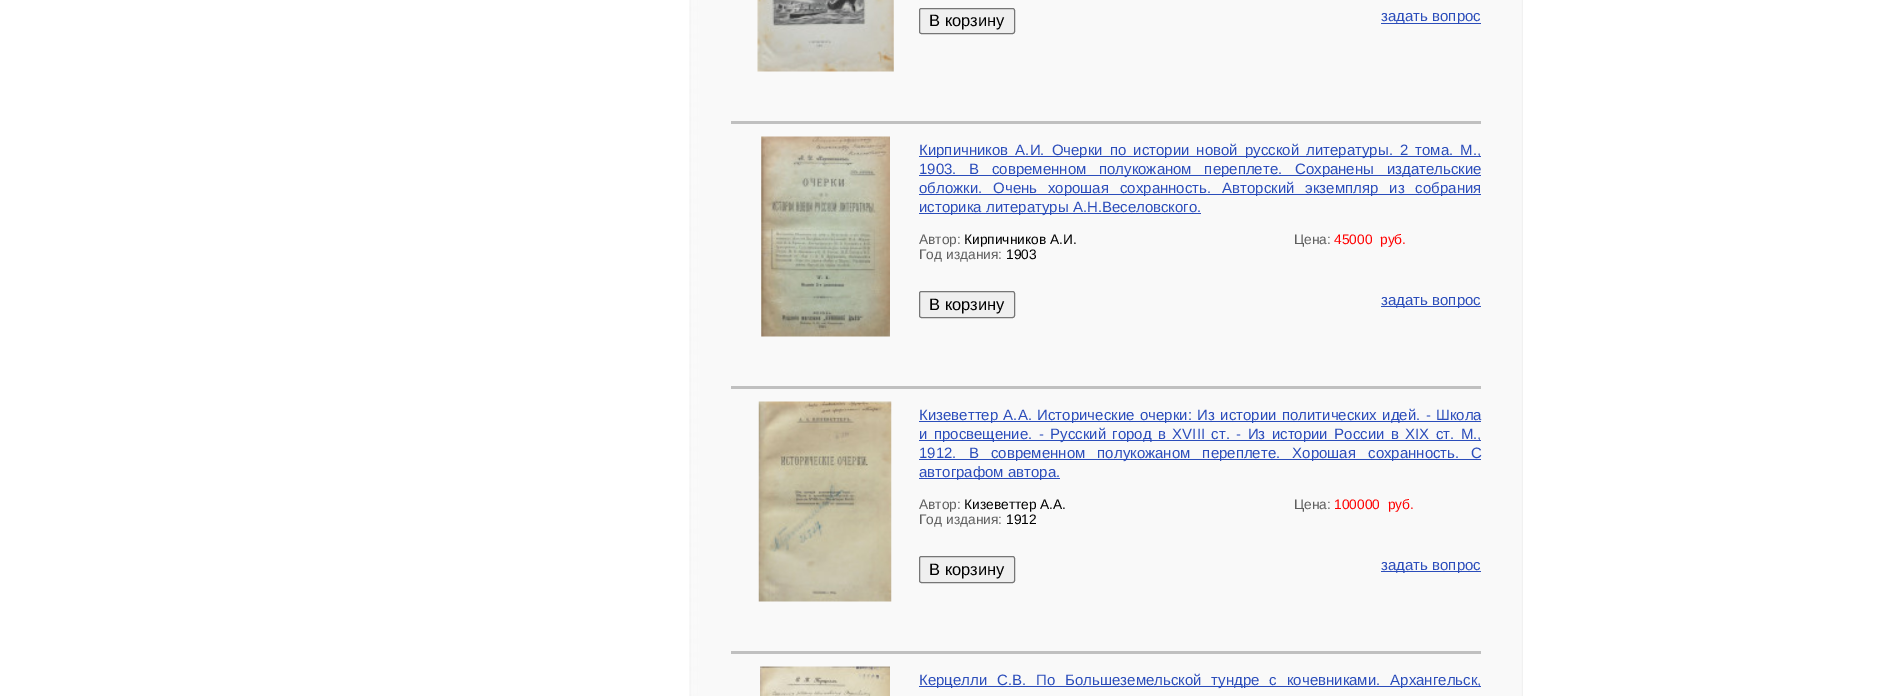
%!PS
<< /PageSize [1899 696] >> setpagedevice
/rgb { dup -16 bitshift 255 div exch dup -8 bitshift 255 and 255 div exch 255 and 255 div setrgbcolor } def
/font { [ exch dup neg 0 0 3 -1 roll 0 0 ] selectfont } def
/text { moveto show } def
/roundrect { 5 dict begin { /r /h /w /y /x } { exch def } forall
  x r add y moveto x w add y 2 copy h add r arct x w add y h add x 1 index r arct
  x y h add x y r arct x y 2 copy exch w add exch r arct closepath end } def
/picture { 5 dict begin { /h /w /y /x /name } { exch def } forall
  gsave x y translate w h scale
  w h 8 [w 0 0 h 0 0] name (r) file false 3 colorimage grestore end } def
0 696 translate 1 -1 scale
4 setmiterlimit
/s1 { /LiberationSans-Regular 16.5 font 16#000000 rgb } def
/s2 { /LiberationSans-Regular 15 font 16#2B4DBB rgb } def
/s3 { /LiberationSans-Regular 13.75 font 16#5F5F5F rgb } def
/s4 { /LiberationSans-Regular 13.75 font 16#000000 rgb } def
/s5 { /LiberationSans-Regular 13.75 font 16#FF0000 rgb } def
16#FFFFFF rgb
0 0 1899 696 rectfill
(pic1.raw) 689 0 834 696 picture
16#C0C0C0 rgb
731 121 750 3 rectfill
(pic2.raw) 757 0 137 72 picture
16#EFEFEF rgb
919.5 8.5 95 25 2 roundrect gsave fill grestore
16#767676 rgb
stroke
s1
(В корзину) 929 26 text
16#2B4DBB rgb
1381 23 100 1 rectfill
s2
(задать вопрос) 1381 21 text
16#C0C0C0 rgb
731 386 750 3 rectfill
(pic3.raw) 761 136 129 201 picture
16#2B4DBB rgb
919 156 562 1 rectfill
919 155 moveto 2.9 0 32 (Кирпичников А.И. Очерки по истории новой русской литературы. 2 тома. М.,) widthshow
919 175 562 1 rectfill
919 174 moveto 8.5 0 32 (1903. В современном полукожаном переплете. Сохранены издательские) widthshow
919 194 562 1 rectfill
919 193 moveto 6.75 0 32 (обложки. Очень хорошая сохранность. Авторский экземпляр из собрания) widthshow
919 213 282 1 rectfill
(историка литературы А.Н.Веселовского.) 919 212 text
s3
(Автор:) 919 244 text
s4
(Кирпичников А.И.) 964 244 text
s3
(Цена:) 1294 244 text
s5
(45000  руб.) 1334 244 text
s3
(Год издания:) 919 259 text
s4
(1903) 1006 259 text
16#EFEFEF rgb
919.5 291.5 95 26 2 roundrect gsave fill grestore
16#767676 rgb
stroke
s1
(В корзину) 929 310 text
16#2B4DBB rgb
1381 306 100 1 rectfill
s2
(задать вопрос) 1381 305 text
16#C0C0C0 rgb
731 651 750 3 rectfill
(pic4.raw) 758 401 134 201 picture
16#2B4DBB rgb
919 421 562 1 rectfill
919 420 moveto 1.25 0 32 (Кизеветтер А.А. Исторические очерки: Из истории политических идей. - Школа) widthshow
919 440 562 1 rectfill
919 439 moveto 2.25 0 32 (и просвещение. - Русский город в XVIII ст. - Из истории России в XIX ст. М.,) widthshow
919 459 562 1 rectfill
919 458 moveto 8 0 32 (1912. В современном полукожаном переплете. Хорошая сохранность. С) widthshow
919 478 141 1 rectfill
(автографом автора.) 919 477 text
s3
(Автор:) 919 509 text
s4
(Кизеветтер А.А.) 964 509 text
s3
(Цена:) 1294 509 text
s5
(100000  руб.) 1334 509 text
s3
(Год издания:) 919 524 text
s4
(1912) 1006 524 text
16#EFEFEF rgb
919.5 556.5 95 26 2 roundrect gsave fill grestore
16#767676 rgb
stroke
s1
(В корзину) 929 575 text
16#2B4DBB rgb
1381 571 100 1 rectfill
s2
(задать вопрос) 1381 570 text
(pic5.raw) 760 666 130 30 picture
919 686 562 1 rectfill
919 685 moveto 5.75 0 32 (Керцелли С.В. По Большеземельской тундре с кочевниками. Архангельск,) widthshow
showpage
